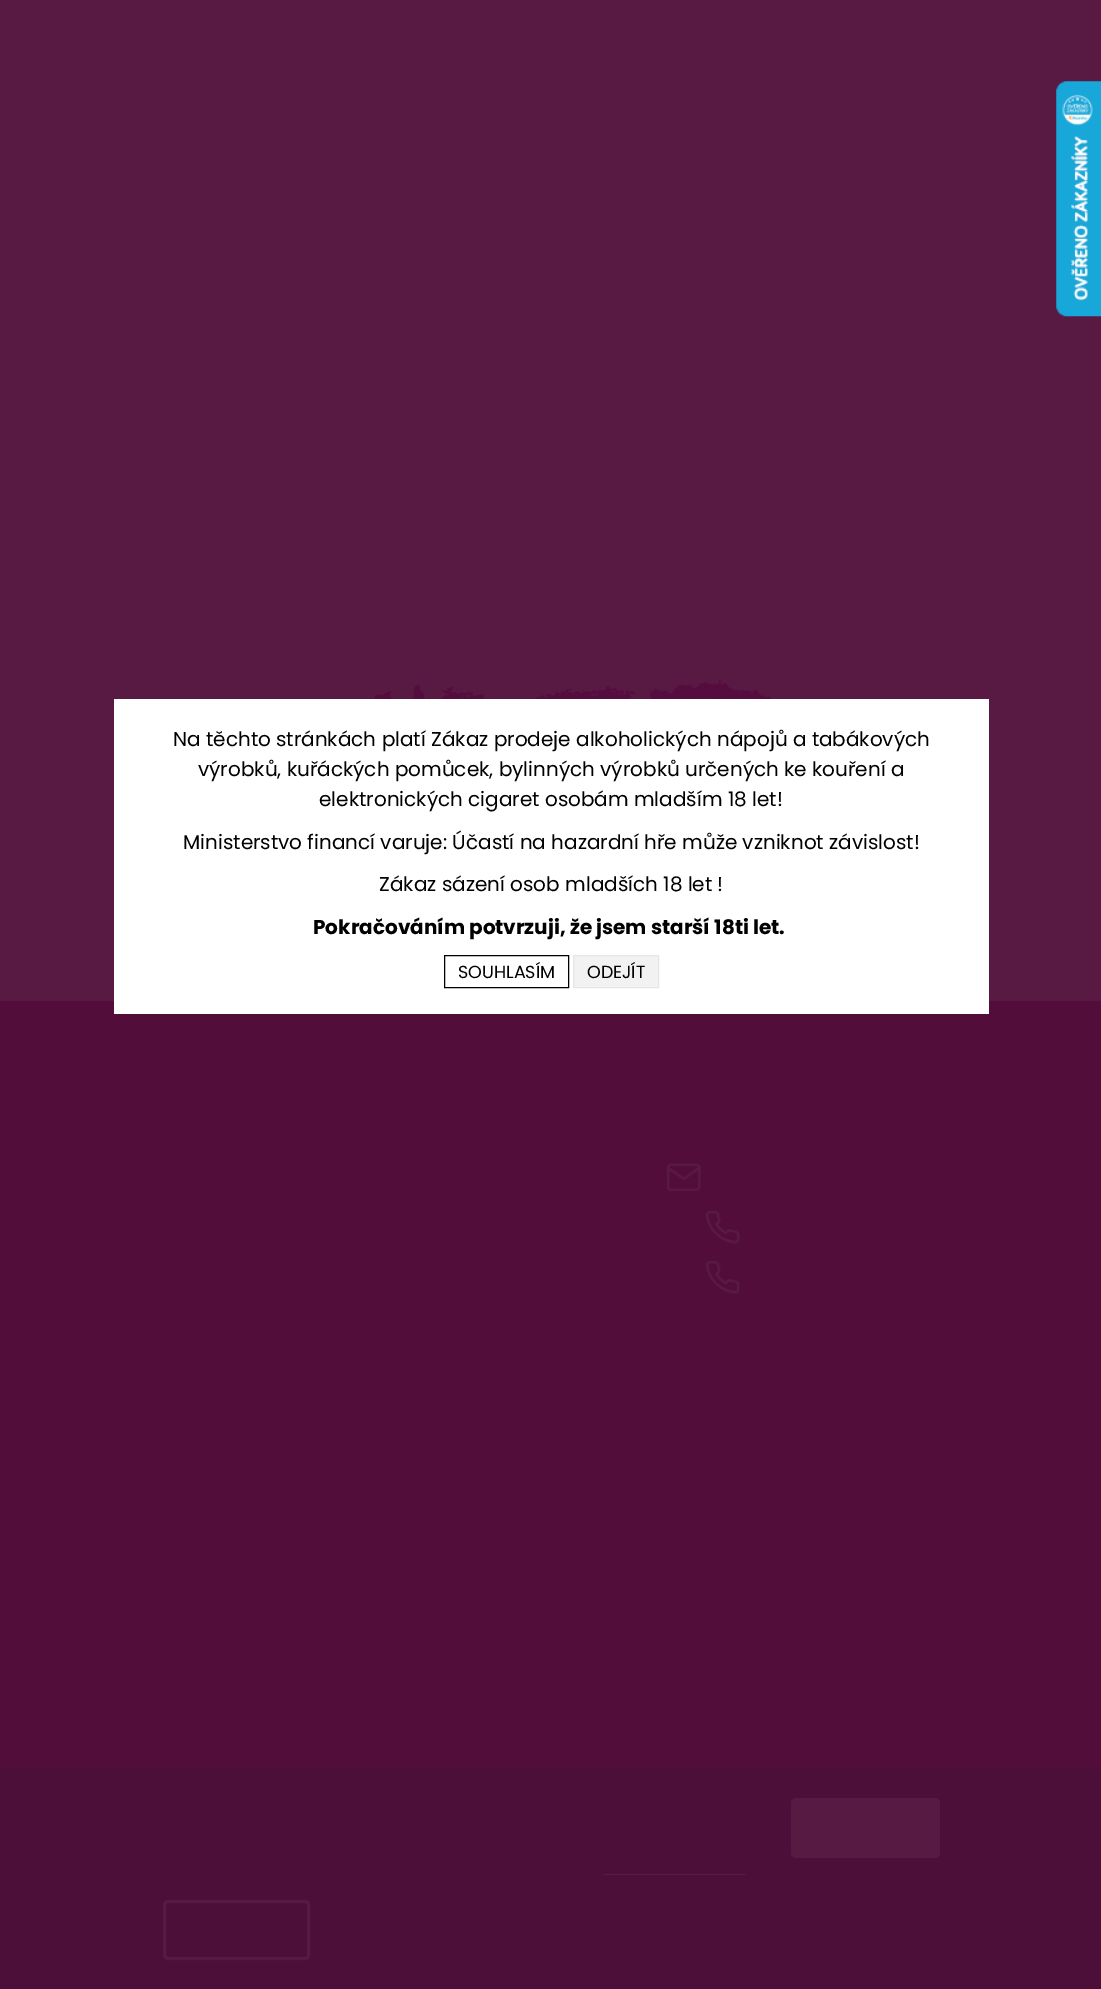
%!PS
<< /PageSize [1101 1989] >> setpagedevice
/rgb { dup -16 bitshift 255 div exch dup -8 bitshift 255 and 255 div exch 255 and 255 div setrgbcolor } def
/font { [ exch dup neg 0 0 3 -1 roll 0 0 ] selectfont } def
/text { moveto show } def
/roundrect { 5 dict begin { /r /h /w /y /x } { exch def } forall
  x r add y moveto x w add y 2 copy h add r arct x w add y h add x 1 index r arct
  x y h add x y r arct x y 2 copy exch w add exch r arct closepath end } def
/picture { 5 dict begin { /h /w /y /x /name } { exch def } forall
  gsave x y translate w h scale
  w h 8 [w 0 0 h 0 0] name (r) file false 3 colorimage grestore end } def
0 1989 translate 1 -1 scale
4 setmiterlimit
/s1 { /Poppins-Regular 20 font 16#000000 rgb } def
/s2 { /Poppins-Bold 20 font 16#000000 rgb } def
/s3 { /Poppins-Regular 17.5 font 16#000000 rgb } def
16#581A43 rgb
0 0 1101 1989 rectfill
(pic1.raw) 1056 81 45 236 picture
(pic2.raw) 374 679 398 20 picture
16#530D3B rgb
0 1001 1101 767 rectfill
(pic3.raw) 666 1163 35 28 picture
(pic4.raw) 705 1211 35 33 picture
(pic4.raw) 705 1261 35 33 picture
16#FFFFFF rgb
114 699 875 315 rectfill
s1
(Na těchto stránkách platí Zákaz prodeje alkoholických nápojů a tabákových) 173 746 text
(výrobků, kuřáckých pomůcek, bylinných výrobků určených ke kouření a) 198 776 text
(elektronických cigaret osobám mladším 18 let!) 319 806 text
(Ministerstvo financí varuje: Účastí na hazardní hře může vzniknot závislost!) 183 849 text
(Zákaz sázení osob mladších 18 let !) 379 891 text
s2
(Pokračováním potvrzuji, že jsem starší 18ti let.) 313 934 text
444.5 955.5 124 32 rectstroke
s3
(SOUHLASÍM) 458 978 text
16#F2F2F2 rgb
573.5 955.5 moveto 658.5 955.5 lineto 658.5 987.5 lineto 573.5 987.5 lineto closepath gsave fill grestore
16#E6E6E6 rgb
stroke
s3
(ODEJÍT) 587 978 text
16#4C0F39 rgb
0 1768 1101 221 rectfill
16#571A43 rgb
791 1798 149 60 5 roundrect fill
603 1874 143 1 rectfill
3 setlinewidth
164.5 1901.5 144 57 3.5 roundrect stroke
showpage
